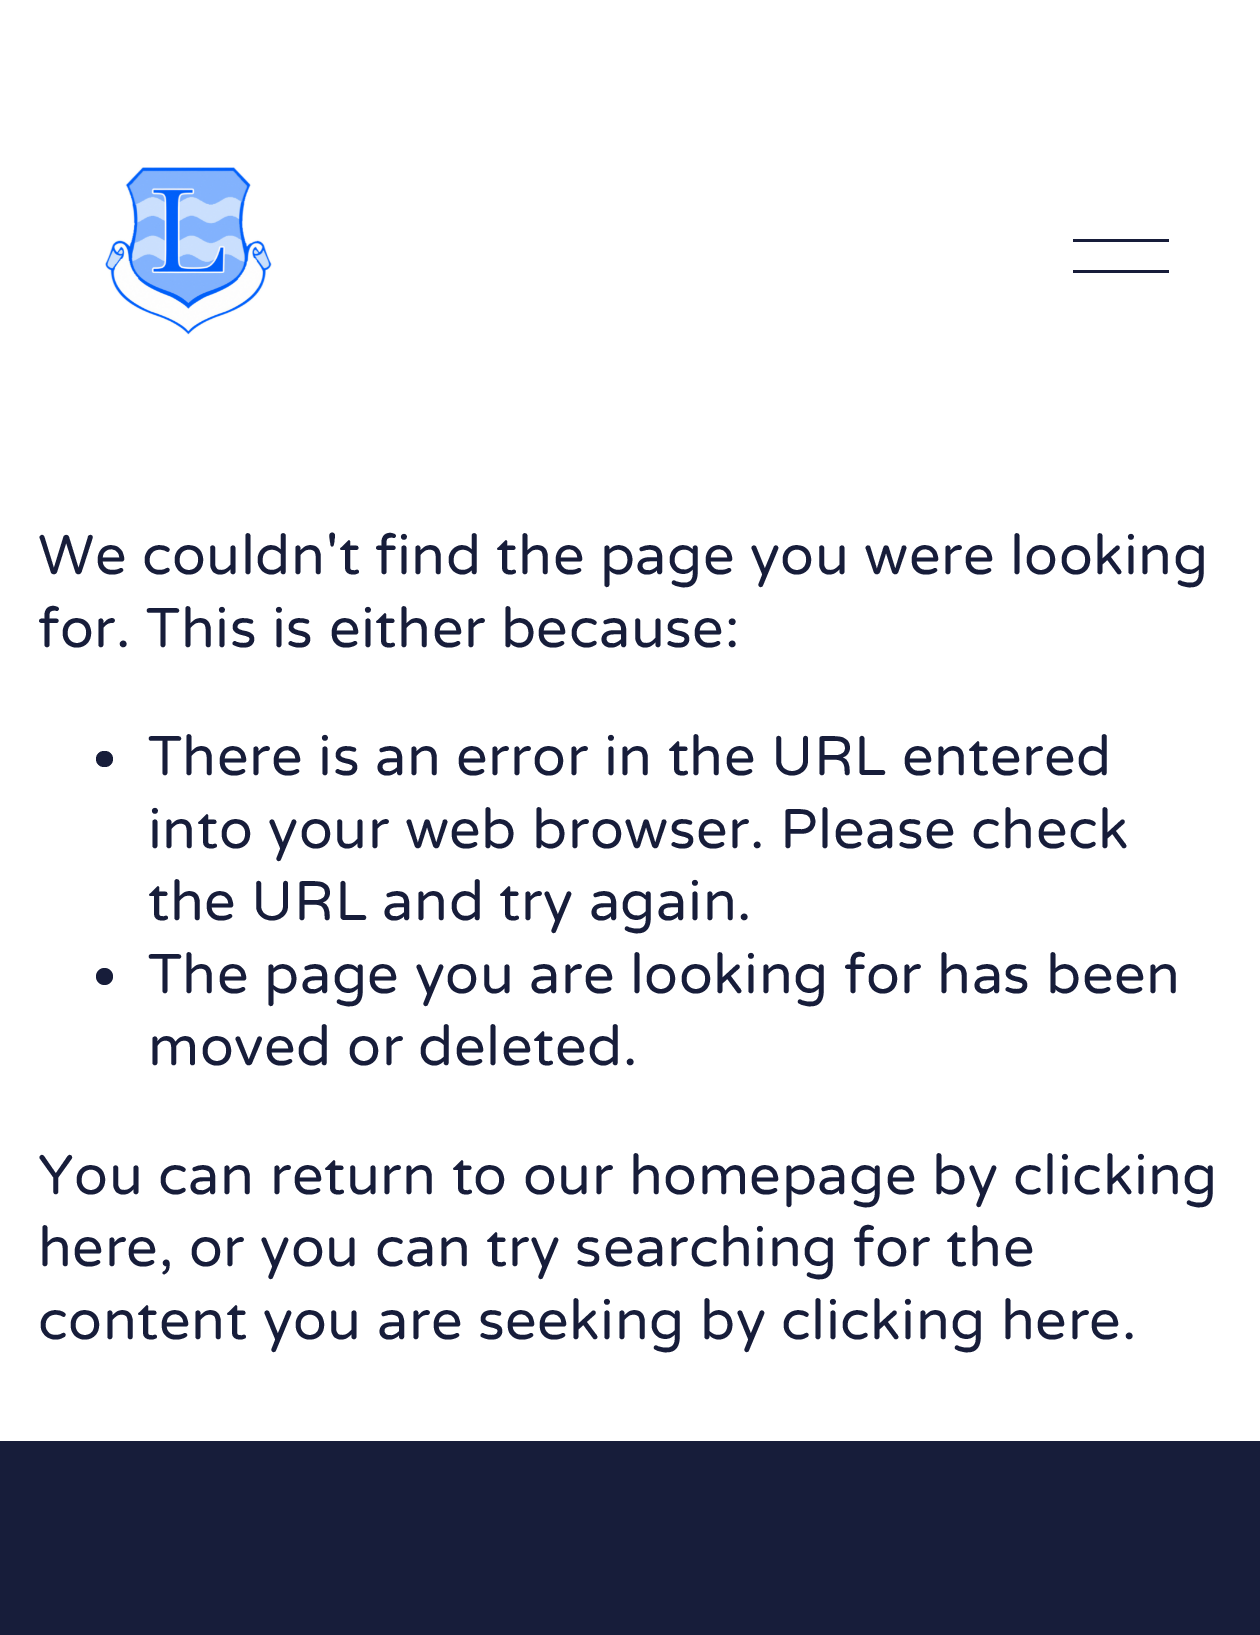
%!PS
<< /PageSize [1260 1635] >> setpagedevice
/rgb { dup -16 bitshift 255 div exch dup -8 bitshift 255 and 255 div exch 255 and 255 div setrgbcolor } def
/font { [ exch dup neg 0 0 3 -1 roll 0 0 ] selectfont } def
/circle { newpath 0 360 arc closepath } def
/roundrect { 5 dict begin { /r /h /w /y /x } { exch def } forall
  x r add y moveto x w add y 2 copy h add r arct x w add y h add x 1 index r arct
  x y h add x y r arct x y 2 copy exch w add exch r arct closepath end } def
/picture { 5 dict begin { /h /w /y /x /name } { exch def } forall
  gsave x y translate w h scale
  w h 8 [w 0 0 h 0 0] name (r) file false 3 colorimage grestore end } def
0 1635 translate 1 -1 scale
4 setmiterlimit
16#FFFFFF rgb
0 0 1260 1635 rectfill
(pic1.raw) 105 167 167 168 picture
16#171D3A rgb
1073 239 96 3 rectfill
1073 270 96 3 rectfill
/VarelaRound-Regular 55.75 font
38 574 moveto -0.25 0 32 0.55 0 (We couldn't find the page you were looking) awidthshow
38 647 moveto 0.55 0 (for. This is either because:) ashow
96 751 17 16 8 roundrect fill
148 775 moveto 0.55 0 (There is an error in the URL entered) ashow
148 848 moveto 0.55 0 (into your web browser. Please check) ashow
148 920 moveto 0.55 0 (the URL and try again.) ashow
104.5 976.5 8.5 circle fill
148 993 moveto 0.55 0 (The page you are looking for has been) ashow
148 1065 moveto 0.55 0 (moved or deleted.) ashow
38 1194 moveto 0.55 0 (You can return to our homepage by clicking) ashow
38 1266 moveto 0.55 0 (here, or you can try searching for the) ashow
38 1339 moveto 0.55 0 (content you are seeking by) ashow
781 1339 moveto 0.55 0 (clicking here.) ashow
0 1441 1260 194 rectfill
showpage
